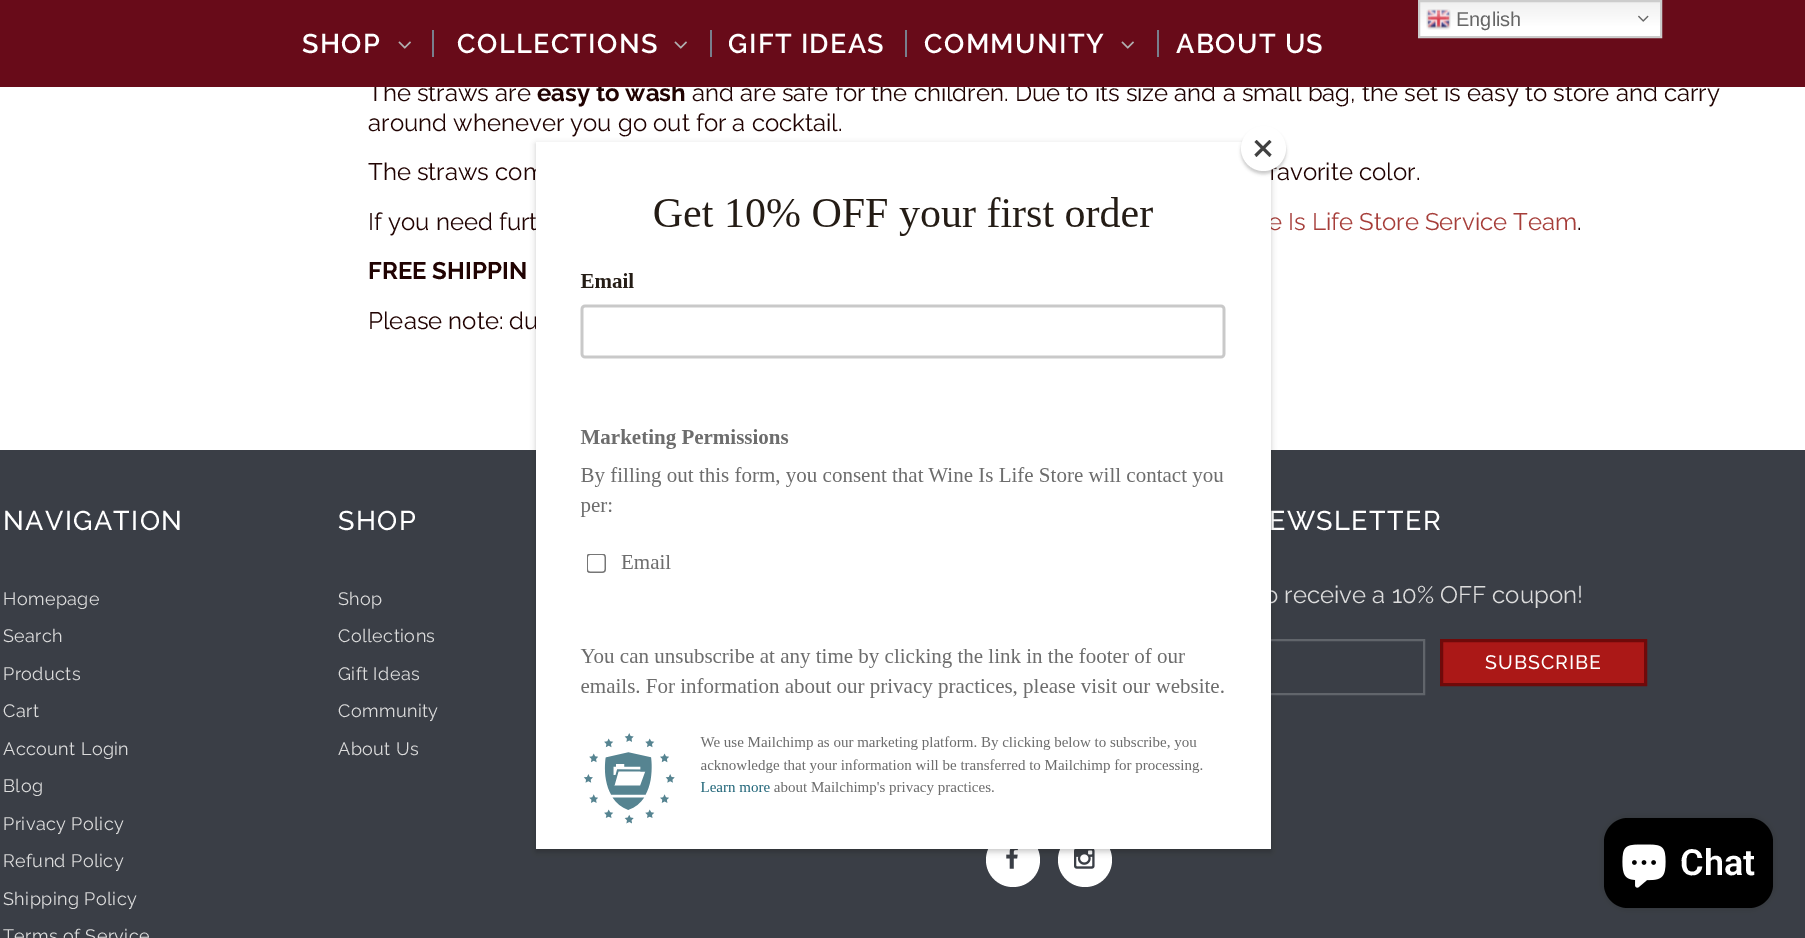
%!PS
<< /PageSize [1805 938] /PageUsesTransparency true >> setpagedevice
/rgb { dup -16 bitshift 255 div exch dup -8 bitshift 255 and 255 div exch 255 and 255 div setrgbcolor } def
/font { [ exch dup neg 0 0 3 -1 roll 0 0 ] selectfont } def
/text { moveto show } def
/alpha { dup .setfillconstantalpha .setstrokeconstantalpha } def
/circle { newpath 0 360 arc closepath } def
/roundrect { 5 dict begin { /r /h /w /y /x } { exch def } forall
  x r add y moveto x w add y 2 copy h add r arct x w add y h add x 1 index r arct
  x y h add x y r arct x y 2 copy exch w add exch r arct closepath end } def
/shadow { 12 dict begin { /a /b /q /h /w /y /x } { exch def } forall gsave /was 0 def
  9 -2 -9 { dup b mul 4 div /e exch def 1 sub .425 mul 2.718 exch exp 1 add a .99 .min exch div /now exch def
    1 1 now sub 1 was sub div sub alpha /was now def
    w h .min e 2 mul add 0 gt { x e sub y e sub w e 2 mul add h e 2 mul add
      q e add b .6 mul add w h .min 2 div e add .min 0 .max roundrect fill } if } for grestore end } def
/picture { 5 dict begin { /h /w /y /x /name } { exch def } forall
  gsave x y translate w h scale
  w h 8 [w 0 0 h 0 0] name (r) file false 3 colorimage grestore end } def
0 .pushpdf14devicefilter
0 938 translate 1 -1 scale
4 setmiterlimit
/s1 { /Raleway-Regular 24 font 16#210302 rgb } def
/s2 { /Raleway-Bold 24 font 16#210302 rgb } def
/s3 { /LiberationSans-Regular 20 font 16#666666 rgb } def
/s4 { /Raleway-Regular 24 font 16#A63E3A rgb } def
/s5 { /Raleway-Regular 24 font 16#DCDCDC rgb } def
/s6 { /Roboto-SemiBold 36 font 16#FFFFFF rgb } def
16#FFFFFF rgb
0 0 1805 938 rectfill
s1
(The straws are) 368 101 text
s2
(easy to wash) 537 101 text
s1
(and are safe for the children. Due to its size and a small bag, the set is easy to store and carry) 692 101 text
16#680B19 rgb
0 0 1805 87 rectfill
gsave 1420 2 moveto 1660 2 lineto 1660 36 lineto 1420 36 lineto closepath clip newpath
<< /ShadingType 2 /ColorSpace /DeviceRGB /Coords [1540 0 1540 38] /Extend [true true] /Function << /FunctionType 3 /Domain [0 1] /Functions [<< /FunctionType 2 /Domain [0 1] /C0 [0.937 0.937 0.937] /C1 [1 1 1] /N 1 >> << /FunctionType 2 /Domain [0 1] /C0 [1 1 1] /C1 [1 1 1] /N 1 >>] /Bounds [0.7] /Encode [0 1 0 1] >> >> shfill grestore
16#CCCCCC rgb
2 setlinewidth
1419 1 242 36 rectstroke
(pic1.raw) 1426 9 25 21 picture
s3
(English) 1456 26 text
(pic2.raw) 1638 15 11 7 picture
/Raleway-SemiBold 27 font
16#FFFFFF rgb
302 53 moveto 1.4 0 (SHOP) ashow
(pic3.raw) 398 41 13 8 picture
16#787F8D rgb
432 30 2 27 rectfill
16#FFFFFF rgb
457 53 moveto 1.4 0 (COLLECTIONS) ashow
(pic3.raw) 674 41 13 8 picture
16#787F8D rgb
710 30 2 27 rectfill
16#FFFFFF rgb
728 53 moveto 1.4 0 (GIFT IDEAS) ashow
16#787F8D rgb
905 30 2 27 rectfill
16#FFFFFF rgb
924 53 moveto 1.4 0 (COMMUNITY) ashow
(pic3.raw) 1121 41 13 8 picture
16#787F8D rgb
1157 30 2 27 rectfill
16#FFFFFF rgb
1176 53 moveto 1.4 0 (ABOUT US) ashow
s1
(around whenever you go out for a cocktail.) 368 131 text
(The straws com) 368 180 text
(favorite color.) 1269 180 text
(If you need furt) 368 230 text
s4
(e Is Life Store Service Team) 1268 230 text
s1
(.) 1577 230 text
s2
(FREE SHIPPIN) 368 279 text
s1
(Please note: du) 368 329 text
16#3A3E46 rgb
0 450 1805 488 rectfill
/Raleway-Medium 27 font
16#FFFFFF rgb
3 530 moveto 1.4 0 (NAVIGATION) ashow
/Raleway-Regular 18 font
16#DCDCDC rgb
3 605 moveto 0.4 0 (Homepage) ashow
3 642 moveto 0.4 0 (Search) ashow
3 680 moveto 0.4 0 (Products) ashow
3 717 moveto 0.4 0 (Cart) ashow
3 755 moveto 0.4 0 (Account Login) ashow
3 792 moveto 0.4 0 (Blog) ashow
3 830 moveto 0.4 0 (Privacy Policy) ashow
3 867 moveto 0.4 0 (Refund Policy) ashow
3 905 moveto 0.4 0 (Shipping Policy) ashow
3 942 moveto 0.4 0 (Terms of Service) ashow
/Raleway-Medium 27 font
16#FFFFFF rgb
338 530 moveto 1.4 0 (SHOP) ashow
/Raleway-Regular 18 font
16#DCDCDC rgb
338 605 moveto 0.4 0 (Shop) ashow
338 642 moveto 0.4 0 (Collections) ashow
338 680 moveto 0.4 0 (Gift Ideas) ashow
338 717 moveto 0.4 0 (Community) ashow
338 755 moveto 0.4 0 (About Us) ashow
/Raleway-Medium 27 font
16#FFFFFF rgb
1269 530 moveto 1.4 0 (EWSLETTER) ashow
s5
(o receive a 10% OFF coupon!) 1264 603 text
16#61656B rgb
987 640 437 54 rectstroke
16#AB1817 rgb
1441.5 640.5 moveto 1645.5 640.5 lineto 1645.5 684.5 lineto 1441.5 684.5 lineto closepath gsave fill grestore
16#6F0A0A rgb
3 setlinewidth
stroke
/Raleway-Medium 19.5 font
16#FFFFFF rgb
1485 669 moveto 1 0 (SUBSCRIBE) ashow
1013 860 27 circle fill
(pic4.raw) 1006 849 12 20 picture
1085 860 27 circle fill
(pic5.raw) 1074 849 21 20 picture
16#000000 rgb
536 144 735 708 0 3 0.2 shadow
(pic6.raw) 536 142 735 707 picture
1241 129 45 45 22.5 1.5 0.2 shadow
16#FFFFFF rgb
1263.5 148.5 22.5 circle fill
16#414141 rgb
1269.5 140 moveto 1271.5 142 lineto 1256.5 157 lineto 1254.5 154.5 lineto closepath fill
1254.5 142 moveto 1256.5 140 lineto 1271.5 154.5 lineto 1269.5 157 lineto closepath fill
16#000000 rgb
1604 818 169 90 24 4 0.15 shadow
1604 818 169 90 24 roundrect fill
(pic7.raw) 1622 844 44 44 picture
s6
(Chat) 1680 875 text
.poppdf14devicefilter showpage
